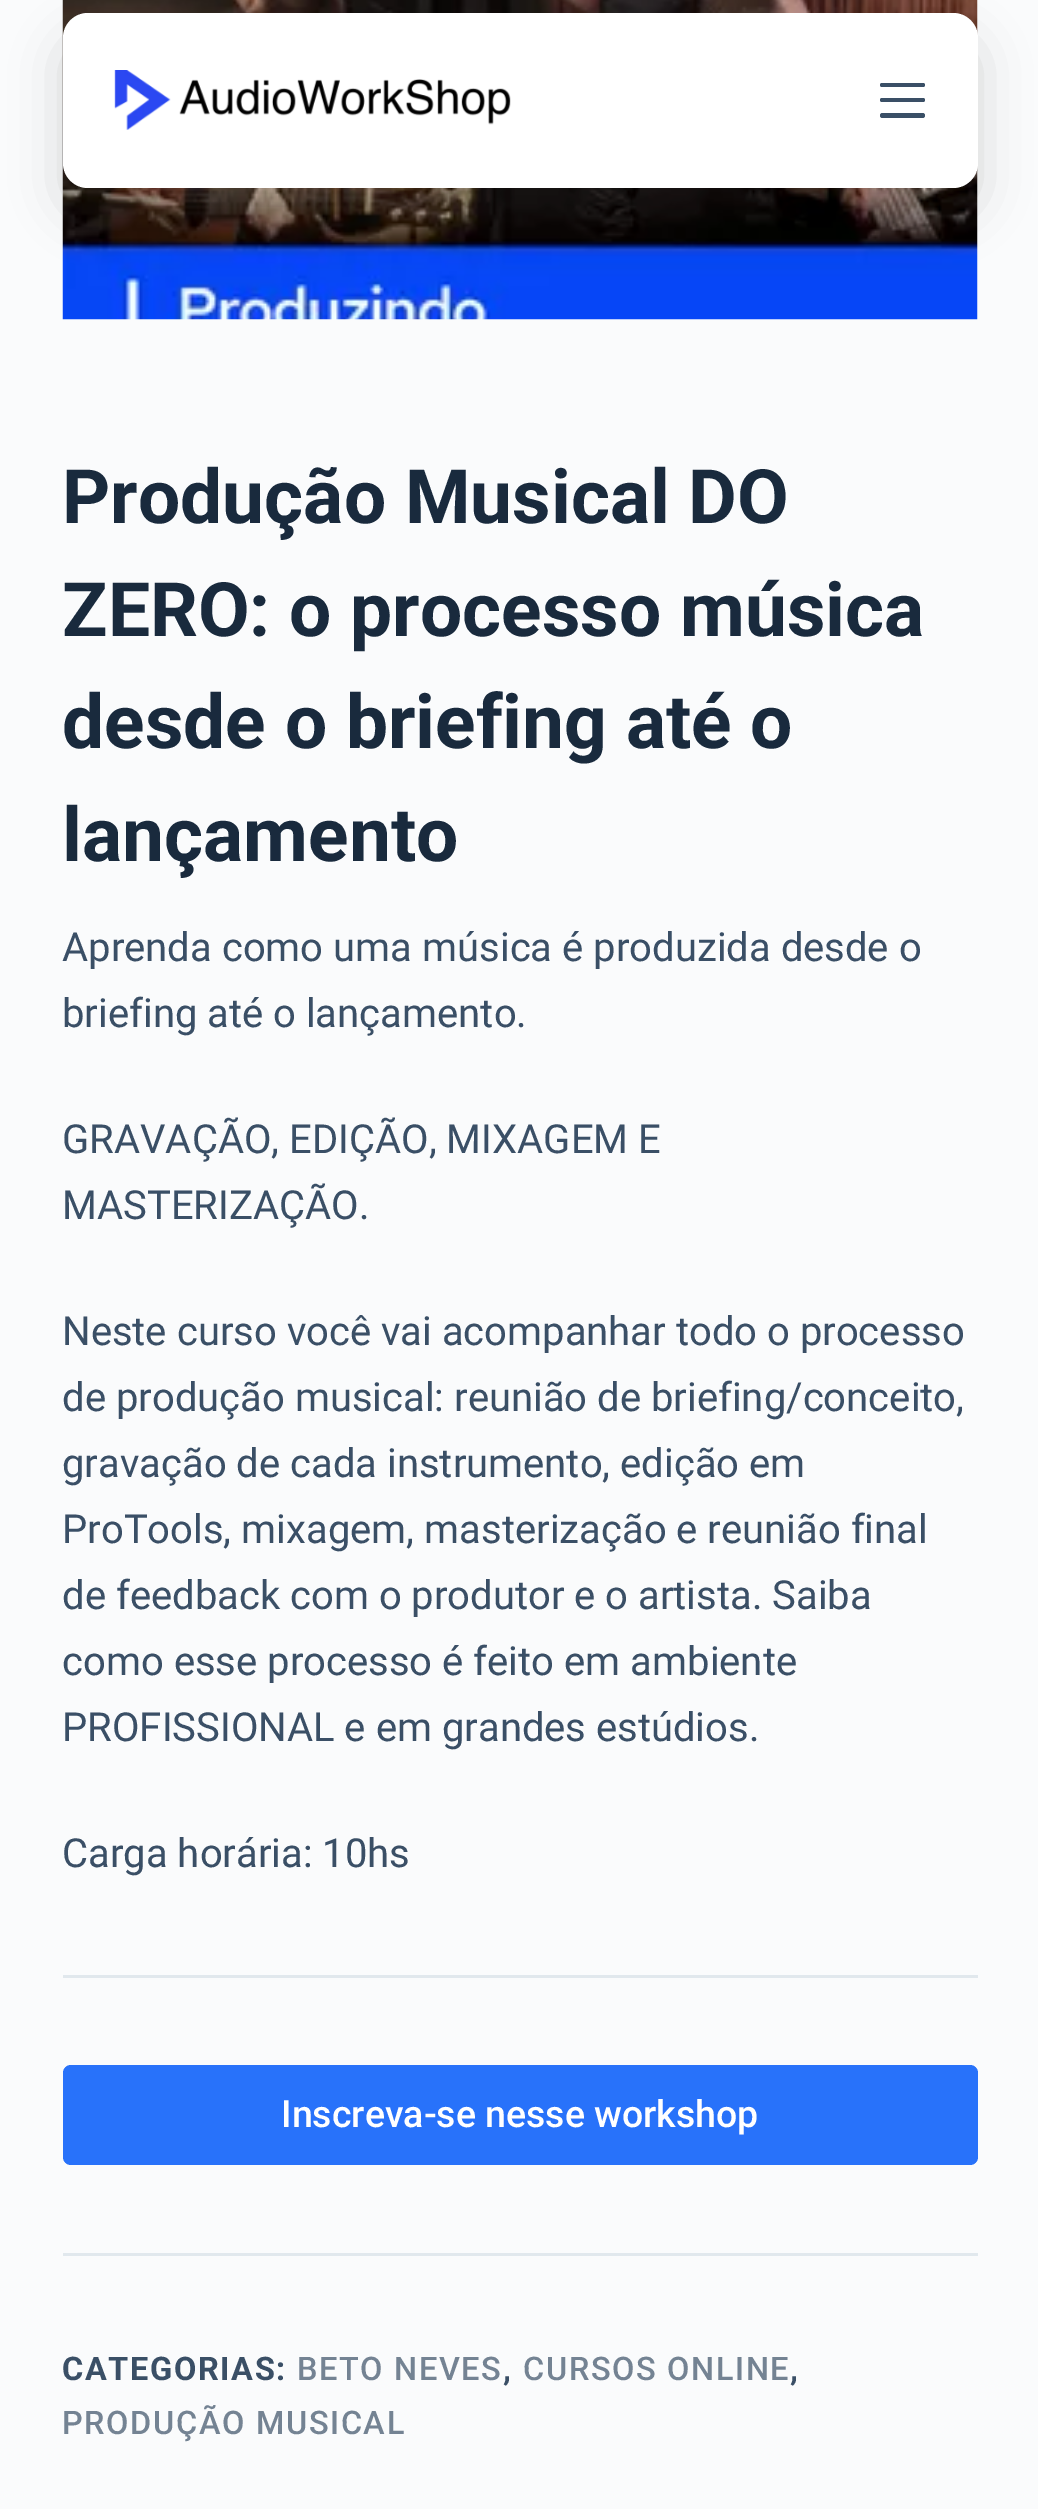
%!PS
<< /PageSize [1038 2509] /PageUsesTransparency true >> setpagedevice
/rgb { dup -16 bitshift 255 div exch dup -8 bitshift 255 and 255 div exch 255 and 255 div setrgbcolor } def
/font { [ exch dup neg 0 0 3 -1 roll 0 0 ] selectfont } def
/text { moveto show } def
/alpha { dup .setfillconstantalpha .setstrokeconstantalpha } def
/roundrect { 5 dict begin { /r /h /w /y /x } { exch def } forall
  x r add y moveto x w add y 2 copy h add r arct x w add y h add x 1 index r arct
  x y h add x y r arct x y 2 copy exch w add exch r arct closepath end } def
/shadow { 12 dict begin { /a /b /q /h /w /y /x } { exch def } forall gsave /was 0 def
  9 -2 -9 { dup b mul 4 div /e exch def 1 sub .425 mul 2.718 exch exp 1 add a .99 .min exch div /now exch def
    1 1 now sub 1 was sub div sub alpha /was now def
    w h .min e 2 mul add 0 gt { x e sub y e sub w e 2 mul add h e 2 mul add
      q e add b .6 mul add w h .min 2 div e add .min 0 .max roundrect fill } if } for grestore end } def
/picture { 5 dict begin { /h /w /y /x /name } { exch def } forall
  gsave x y translate w h scale
  w h 8 [w 0 0 h 0 0] name (r) file false 3 colorimage grestore end } def
0 .pushpdf14devicefilter
0 2509 translate 1 -1 scale
4 setmiterlimit
/s1 { /Roboto-Bold 75 font 16#192A3D rgb } def
/s2 { /Roboto-Regular 40 font 16#3A4F66 rgb } def
/s3 { /Roboto-Medium 37.5 font 16#FFFFFF rgb } def
16#FAFBFC rgb
0 0 1038 2509 rectfill
(pic2.raw) 62 0 916 320 picture
16#000000 rgb
63 38 915 175 25 25 0.15 shadow
16#FFFFFF rgb
63 13 915 175 25 roundrect fill
(pic1.raw) 114 70 397 60 picture
16#3A4F66 rgb
880 83 45 4 2 roundrect fill
880 98 45 4 2 roundrect fill
880 113 45 5 2.5 roundrect fill
s1
(Produção Musical DO) 62 523 text
(ZERO: o processo música) 62 636 text
(desde o briefing até o) 62 748 text
(lançamento) 62 861 text
s2
(Aprenda como uma música é produzida desde o) 62 961 text
(briefing até o lançamento.) 62 1027 text
(GRAVAÇÃO, EDIÇÃO, MIXAGEM E) 62 1153 text
(MASTERIZAÇÃO.) 62 1219 text
(Neste curso você vai acompanhar todo o processo) 62 1345 text
(de produção musical: reunião de briefing/conceito,) 62 1411 text
(gravação de cada instrumento, edição em) 62 1477 text
(ProTools, mixagem, masterização e reunião final) 62 1543 text
(de feedback com o produtor e o artista. Saiba) 62 1609 text
(como esse processo é feito em ambiente) 62 1675 text
(PROFISSIONAL e em grandes estúdios.) 62 1741 text
(Carga horária: 10hs) 62 1867 text
16#E1E8ED rgb
63 1975 915 3 rectfill
16#2872FA rgb
63 2065 915 100 8 roundrect fill
s3
(Inscreva-se nesse workshop) 281 2127 text
16#E1E8ED rgb
63 2253 915 3 rectfill
/Roboto-Bold 32.5 font
16#3A4F66 rgb
62 2380 moveto 1.6 0 (CATEGORIAS:) ashow
/Roboto-Medium 32.5 font
16#748393 rgb
297 2380 moveto 1.6 0 (BETO NEVES) ashow
/Roboto-Bold 32.5 font
16#3A4F66 rgb
503 2380 moveto 1.6 0 (,) ashow
/Roboto-Medium 32.5 font
16#748393 rgb
523 2380 moveto 1.6 0 (CURSOS ONLINE) ashow
/Roboto-Bold 32.5 font
16#3A4F66 rgb
790 2380 moveto 1.6 0 (,) ashow
/Roboto-Medium 32.5 font
16#748393 rgb
62 2434 moveto 1.6 0 (PRODUÇÃO MUSICAL) ashow
.poppdf14devicefilter showpage
